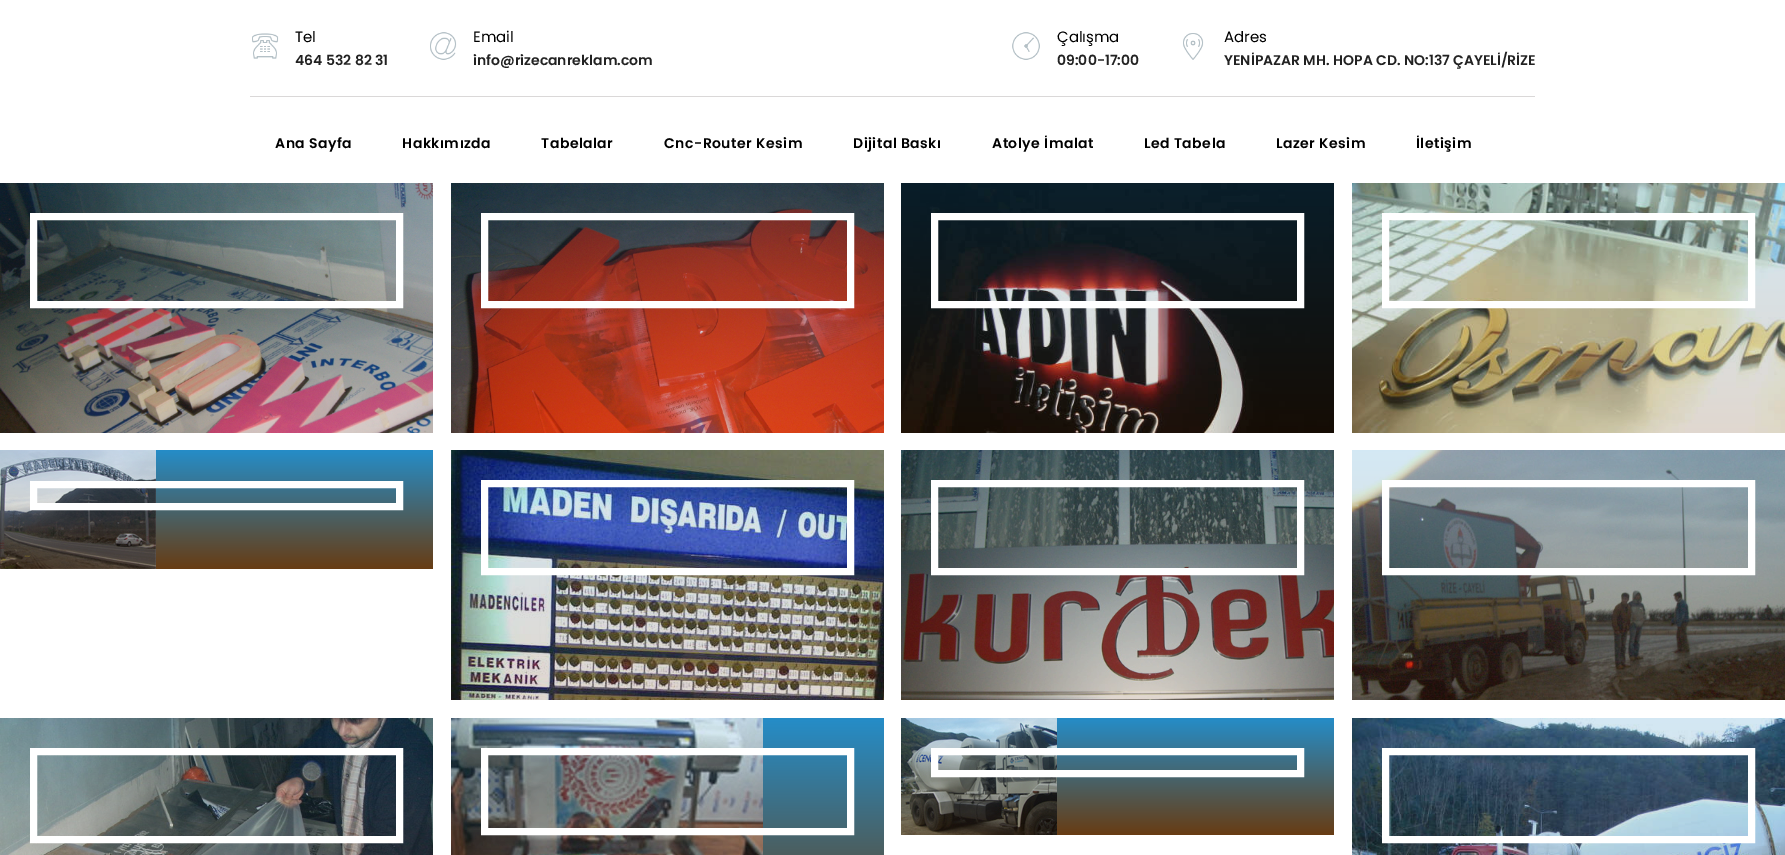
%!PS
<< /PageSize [1785 855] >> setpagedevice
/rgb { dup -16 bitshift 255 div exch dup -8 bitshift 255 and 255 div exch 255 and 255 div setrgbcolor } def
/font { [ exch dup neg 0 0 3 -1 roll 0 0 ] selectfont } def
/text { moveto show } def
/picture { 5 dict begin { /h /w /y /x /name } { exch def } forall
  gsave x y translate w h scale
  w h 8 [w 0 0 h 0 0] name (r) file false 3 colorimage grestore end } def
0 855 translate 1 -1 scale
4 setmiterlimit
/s1 { /Poppins-Regular 15 font 16#000000 rgb } def
/s2 { /Poppins-SemiBold 14 font 16#222222 rgb } def
16#FFFFFF rgb
0 0 1785 855 rectfill
16#DAD8D8 rgb
250 96 1285 1 rectfill
(pic1.raw) 252 33 27 26 picture
s1
(Tel) 295 42 text
s2
(464 532 82 31) 295 65 text
(pic2.raw) 430 32 27 28 picture
s1
(Email) 473 42 text
s2
(info@rizecanreklam.com) 473 65 text
(pic3.raw) 1012 32 28 28 picture
s1
(Çalışma) 1057 42 text
s2
(09:00-17:00) 1057 65 text
(pic4.raw) 1183 33 21 27 picture
s1
(Adres) 1224 42 text
s2
(YENİPAZAR MH. HOPA CD. NO:137 ÇAYELİ/RİZE) 1224 65 text
16#000000 rgb
275 148 moveto 0.5 0 (Ana Sayfa) ashow
402 148 moveto 0.5 0 (Hakkımızda) ashow
541 148 moveto 0.5 0 (Tabelalar) ashow
664 148 moveto 0.5 0 (Cnc-Router Kesim) ashow
853 148 moveto 0.5 0 (Dijital Baskı) ashow
992 148 moveto 0.5 0 (Atolye İmalat) ashow
1144 148 moveto 0.5 0 (Led Tabela) ashow
1276 148 moveto 0.5 0 (Lazer Kesim) ashow
1416 148 moveto 0.5 0 (İletişim) ashow
(pic5.raw) 0 183 433 250 picture
16#FFFFFF rgb
7 setlinewidth
33.5 216.5 366 88 rectstroke
(pic6.raw) 451 183 433 250 picture
484.5 216.5 366 88 rectstroke
(pic7.raw) 901 183 433 250 picture
934.5 216.5 366 88 rectstroke
(pic8.raw) 1352 183 433 250 picture
1385.5 216.5 366 88 rectstroke
gsave 0 450 moveto 433 450 lineto 433 569 lineto 0 569 lineto closepath clip newpath
<< /ShadingType 2 /ColorSpace /DeviceRGB /Coords [217 450 217 569] /Extend [true true] /Function << /FunctionType 2 /Domain [0 1] /C0 [0.145 0.553 0.784] /C1 [0.408 0.235 0.075] /N 1 >> >> shfill grestore
(pic9.raw) 0 450 156 119 picture
33.5 484.5 366 22 rectstroke
(pic10.raw) 451 450 433 250 picture
484.5 483.5 366 88 rectstroke
(pic11.raw) 901 450 433 250 picture
934.5 483.5 366 88 rectstroke
(pic12.raw) 1352 450 433 250 picture
1385.5 483.5 366 88 rectstroke
(pic13.raw) 0 718 433 137 picture
33.5 751.5 366 88 rectstroke
gsave 451 718 moveto 884 718 lineto 884 855 lineto 451 855 lineto closepath clip newpath
<< /ShadingType 2 /ColorSpace /DeviceRGB /Coords [668 718 668 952] /Extend [true true] /Function << /FunctionType 2 /Domain [0 1] /C0 [0.145 0.553 0.784] /C1 [0.408 0.235 0.075] /N 1 >> >> shfill grestore
(pic14.raw) 451 718 312 137 picture
484.5 751.5 366 80 rectstroke
gsave 901 718 moveto 1334 718 lineto 1334 835 lineto 901 835 lineto closepath clip newpath
<< /ShadingType 2 /ColorSpace /DeviceRGB /Coords [1118 718 1118 835] /Extend [true true] /Function << /FunctionType 2 /Domain [0 1] /C0 [0.145 0.553 0.784] /C1 [0.408 0.235 0.075] /N 1 >> >> shfill grestore
(pic15.raw) 901 718 156 117 picture
934.5 751.5 366 22 rectstroke
(pic16.raw) 1352 718 433 137 picture
1385.5 751.5 366 88 rectstroke
showpage
